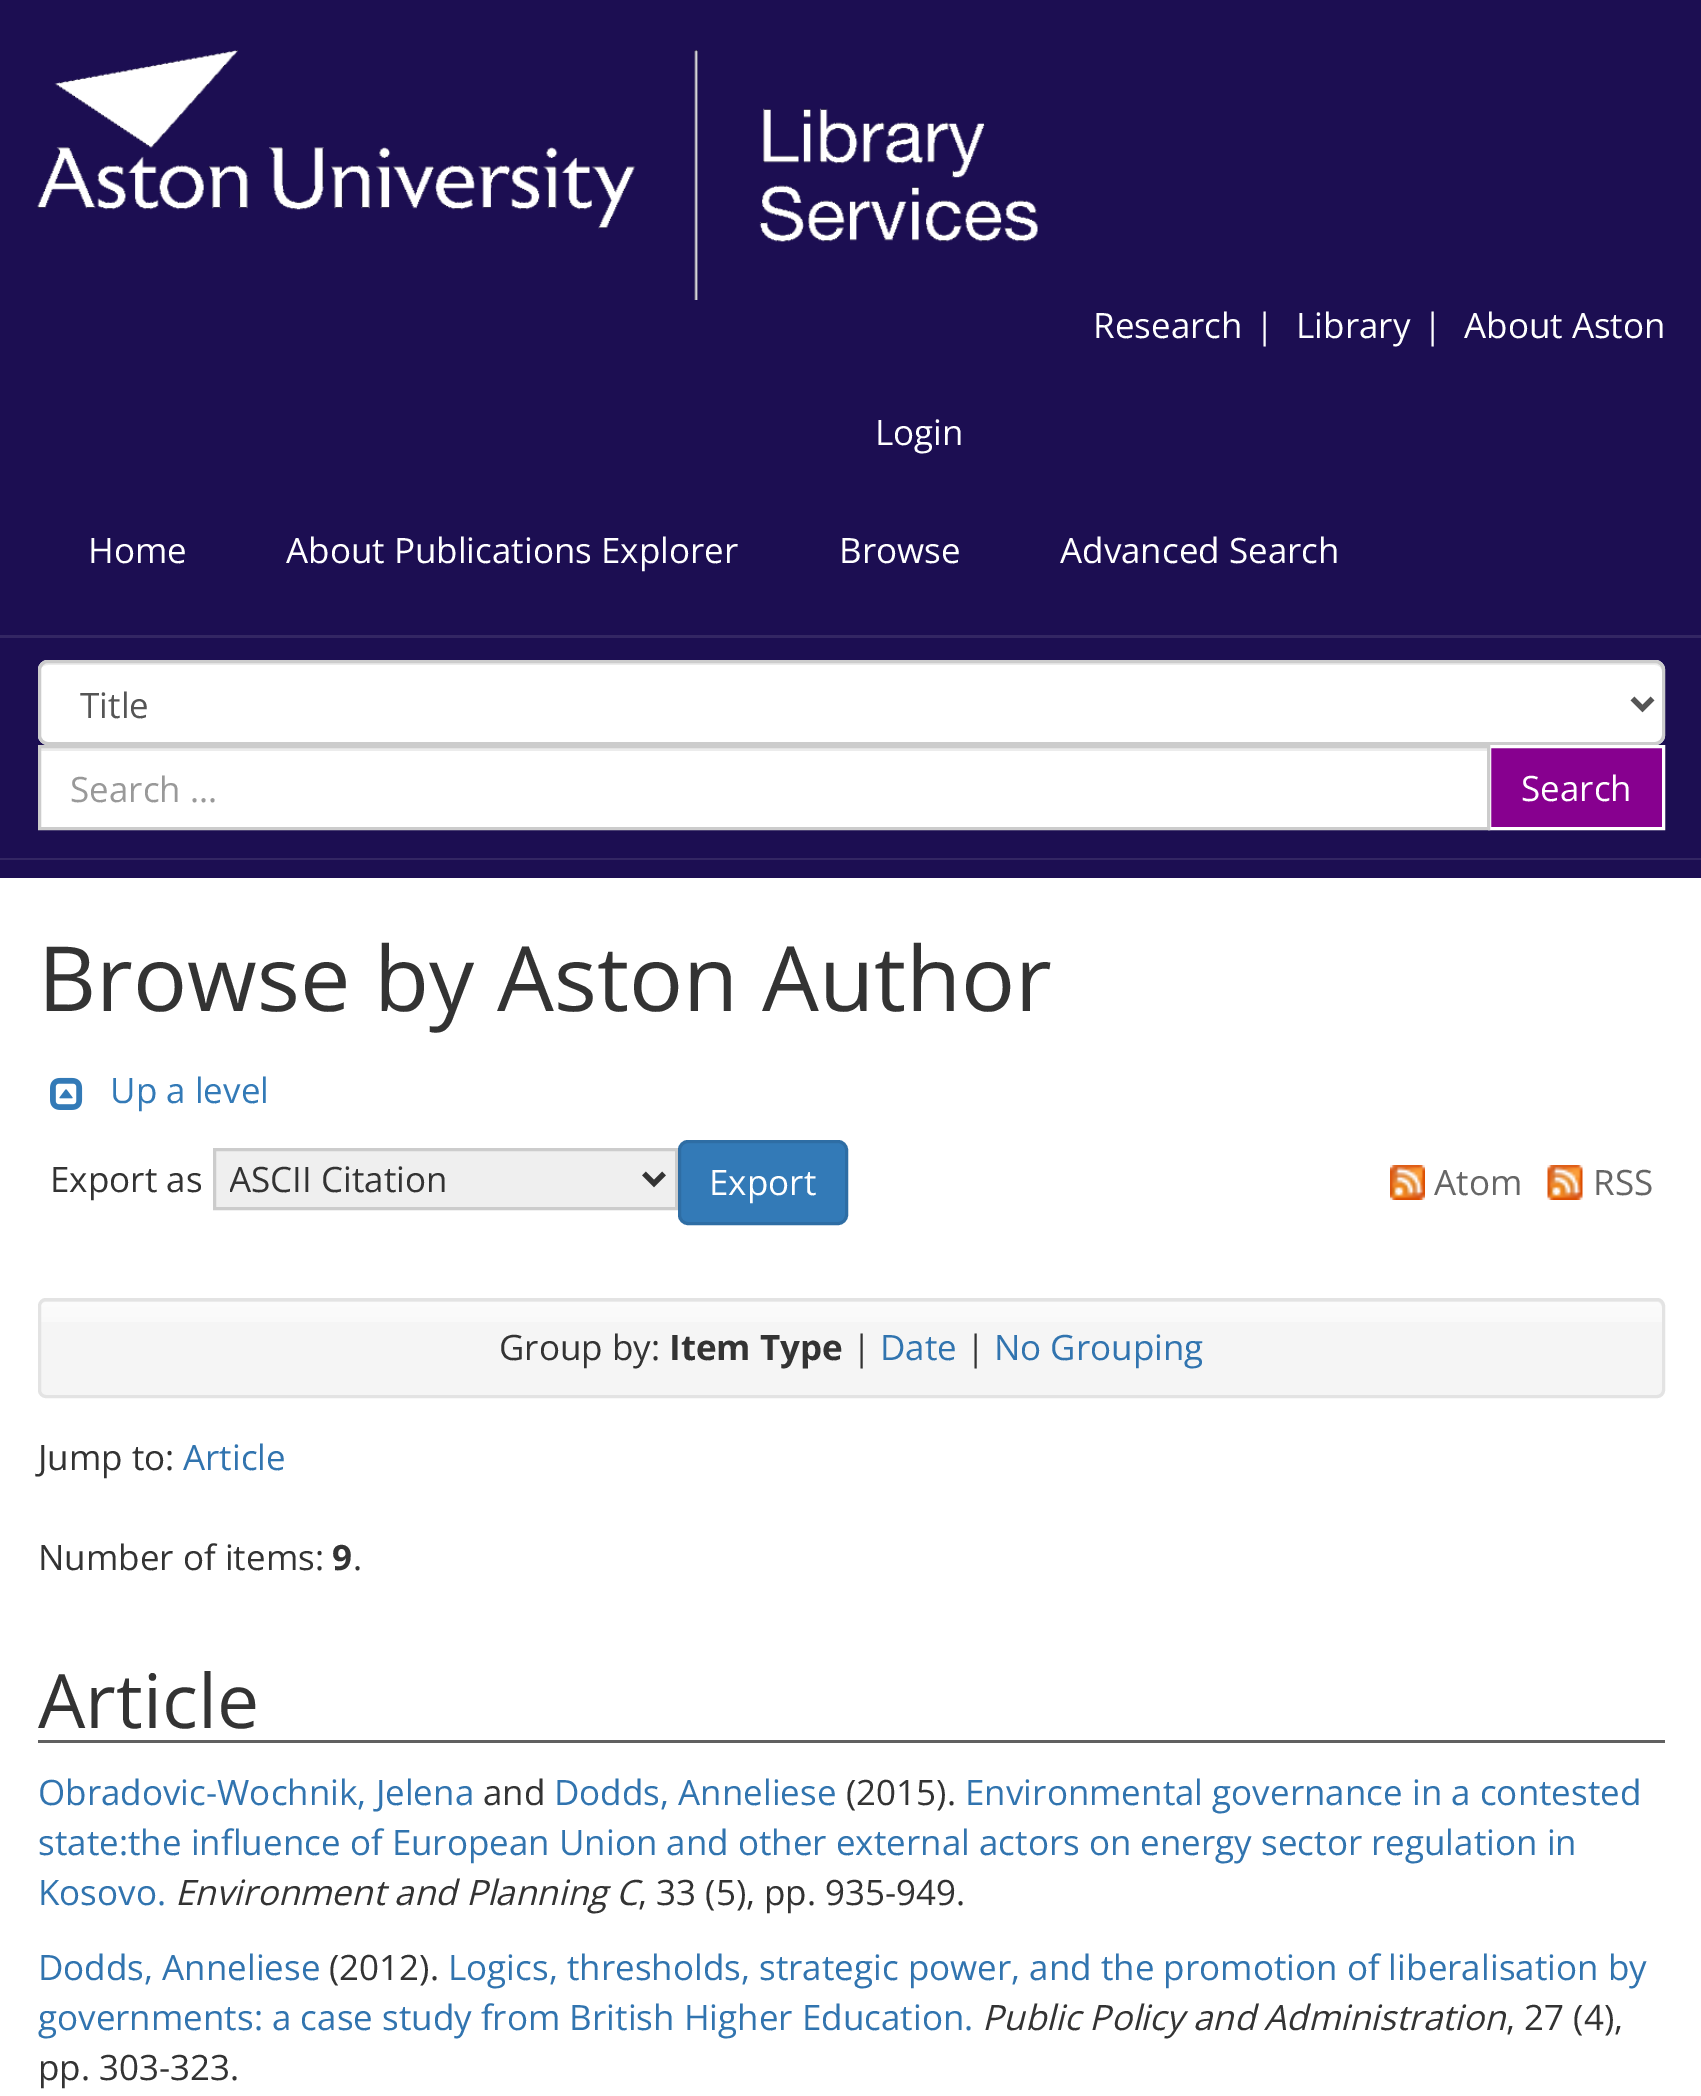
%!PS
<< /PageSize [1701 2096] /PageUsesTransparency true >> setpagedevice
/rgb { dup -16 bitshift 255 div exch dup -8 bitshift 255 and 255 div exch 255 and 255 div setrgbcolor } def
/font { [ exch dup neg 0 0 3 -1 roll 0 0 ] selectfont } def
/text { moveto show } def
/alpha { dup .setfillconstantalpha .setstrokeconstantalpha } def
/roundrect { 5 dict begin { /r /h /w /y /x } { exch def } forall
  x r add y moveto x w add y 2 copy h add r arct x w add y h add x 1 index r arct
  x y h add x y r arct x y 2 copy exch w add exch r arct closepath end } def
/picture { 5 dict begin { /h /w /y /x /name } { exch def } forall
  gsave x y translate w h scale
  w h 8 [w 0 0 h 0 0] name (r) file false 3 colorimage grestore end } def
0 .pushpdf14devicefilter
0 2096 translate 1 -1 scale
4 setmiterlimit
/s1 { /OpenSans-Regular 35 font 16#FFFFFF rgb } def
/s2 { /OpenSans-Regular 35 font 16#555555 rgb } def
/s3 { /OpenSans-Regular 35 font 16#999999 rgb } def
/s4 { /OpenSans-Regular 90 font 16#333333 rgb } def
/s5 { /OpenSans-Regular 35 font 16#337AB7 rgb } def
/s6 { /OpenSans-Regular 35 font 16#333333 rgb } def
/s7 { /OpenSans-Regular 35 font 16#666666 rgb } def
/s8 { /OpenSans-Bold 35 font 16#333333 rgb } def
/s9 { /OpenSans-Regular 35 font 16#3174AF rgb } def
/s10 { /OpenSans-Regular 75 font 16#333333 rgb } def
/s11 { /OpenSans-Italic 35 font 16#333333 rgb } def
16#FFFFFF rgb
0 0 1701 2096 rectfill
16#1C0E52 rgb
0 0 1701 878 rectfill
(pic1.raw) 37 50 1001 250 picture
s1
(Research) 1093 338 text
(|) 1255 338 text
(Library) 1296 338 text
(|) 1423 338 text
(About Aston) 1464 338 text
(Login) 875 445 text
(Home) 88 563 text
(About Publications Explorer) 286 563 text
(Browse) 839 563 text
(Advanced Search) 1060 563 text
16#332663 rgb
0 858 moveto 0 860 lineto 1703 860 lineto 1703 635 lineto 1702 635 lineto 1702 858 lineto closepath fill
0 635 1701 3 rectfill
16#FFFFFF rgb
38 660 1627 85 10 roundrect fill
16#ECECEC rgb
48 665 moveto 1655 665 lineto 1659 665 1662 668 1662 672 curveto 1662 739 lineto 1663 738 1663 736 1663 735 curveto 1663 671 lineto 1663 667 1659 663 1655 663 curveto 48 663 lineto 44 663 40 667 40 671 curveto 40 672 lineto 40 668 43 665 48 665 curveto closepath fill
16#CCCCCC rgb
3 setlinewidth
39.5 661.5 1624 82 8.5 roundrect stroke
16#555555 rgb
5 setlinewidth
1632.5 698.5 moveto 1642.5 708.5 lineto 1652.5 698.5 lineto stroke
(Title) 80 718 text
16#FFFFFF rgb
41 751 1446 76 rectfill
16#ECECEC rgb
40 748 1448 3 rectfill
16#87008F rgb
1489.5 746.5 moveto 1663.5 746.5 lineto 1663.5 828.5 lineto 1489.5 828.5 lineto closepath gsave fill grestore
16#FFFFFF rgb
3 setlinewidth
stroke
16#CCCCCC rgb
39.5 746.5 1449 82 rectstroke
s3
(Search ...) 70 802 text
s1
(Search) 1521 801 text
s4
(Browse by Aston Author) 38 1011 text
(pic2.raw) 50 1077 33 33 picture
s5
(Up a level) 110 1103 text
s6
(Export as) 50 1192 text
16#EFEFEF rgb
214.5 1149.5 moveto 676.5 1149.5 lineto 676.5 1208.5 lineto 214.5 1208.5 lineto closepath gsave fill grestore
16#CCCCCC rgb
stroke
16#333333 rgb
5 setlinewidth
644 1173.5 moveto 654 1183.5 lineto 664 1173.5 lineto stroke
gsave
230 1153 400 52 rectclip
(ASCII Citation) 229 1192 text
grestore
16#337AB7 rgb
679.5 1141.5 167 82 8.5 roundrect gsave fill grestore
16#2E6DA4 rgb
3 setlinewidth
stroke
s1
(Export) 709 1195 text
(pic3.raw) 1390 1165 35 35 picture
s7
(Atom) 1434 1195 text
(pic4.raw) 1547 1165 36 35 picture
(RSS) 1593 1195 text
16#F5F5F5 rgb
38 1298 1627 100 8 roundrect fill
(pic5.raw) 38 1300 1627 22 picture
0.05 alpha
16#000000 rgb
45 1302 moveto 1658 1302 lineto 1660 1302 1662 1305 1662 1308 curveto 1662 1393 lineto 1663 1392 1663 1391 1663 1390 curveto 1663 1305 lineto 1663 1302 1661 1300 1658 1300 curveto 45 1300 lineto 42 1300 40 1302 40 1305 curveto 40 1308 lineto 40 1305 42 1302 45 1302 curveto closepath fill
1 alpha
16#E3E3E3 rgb
39.5 1299.5 1624 97 6.5 roundrect stroke
s6
(Group by:) 499 1360 text
s8
(Item Type) 669 1360 text
s6
(|) 852 1360 text
s9
(Date) 880 1360 text
s6
(|) 966 1360 text
s9
(No Grouping) 994 1360 text
s6
(Jump to:) 38 1470 text
s9
(Article) 183 1470 text
s6
(Number of items:) 38 1570 text
s8
(9) 332 1570 text
s6
(.) 353 1570 text
16#606060 rgb
38 1740 1627 3 rectfill
s10
(Article) 38 1728 text
s9
(Obradovic-Wochnik, Jelena) 38 1805 text
s6
(and) 483 1805 text
s9
(Dodds, Anneliese) 554 1805 text
s6
(\(2015\).) 846 1805 text
s9
(Environmental governance in a contested) 965 1805 text
(state:the influence of European Union and other external actors on energy sector regulation in) 38 1855 text
(Kosovo.) 38 1905 text
s11
(Environment and Planning C) 175 1905 text
s6
(, 33 \(5\), pp. 935-949.) 638 1905 text
s9
(Dodds, Anneliese) 38 1980 text
s6
(\(2012\).) 329 1980 text
s9
(Logics, thresholds, strategic power, and the promotion of liberalisation by) 448 1980 text
(governments: a case study from British Higher Education.) 38 2030 text
s11
(Public Policy and Administration) 982 2030 text
s6
(, 27 \(4\),) 1506 2030 text
(pp. 303-323.) 38 2080 text
.poppdf14devicefilter showpage
